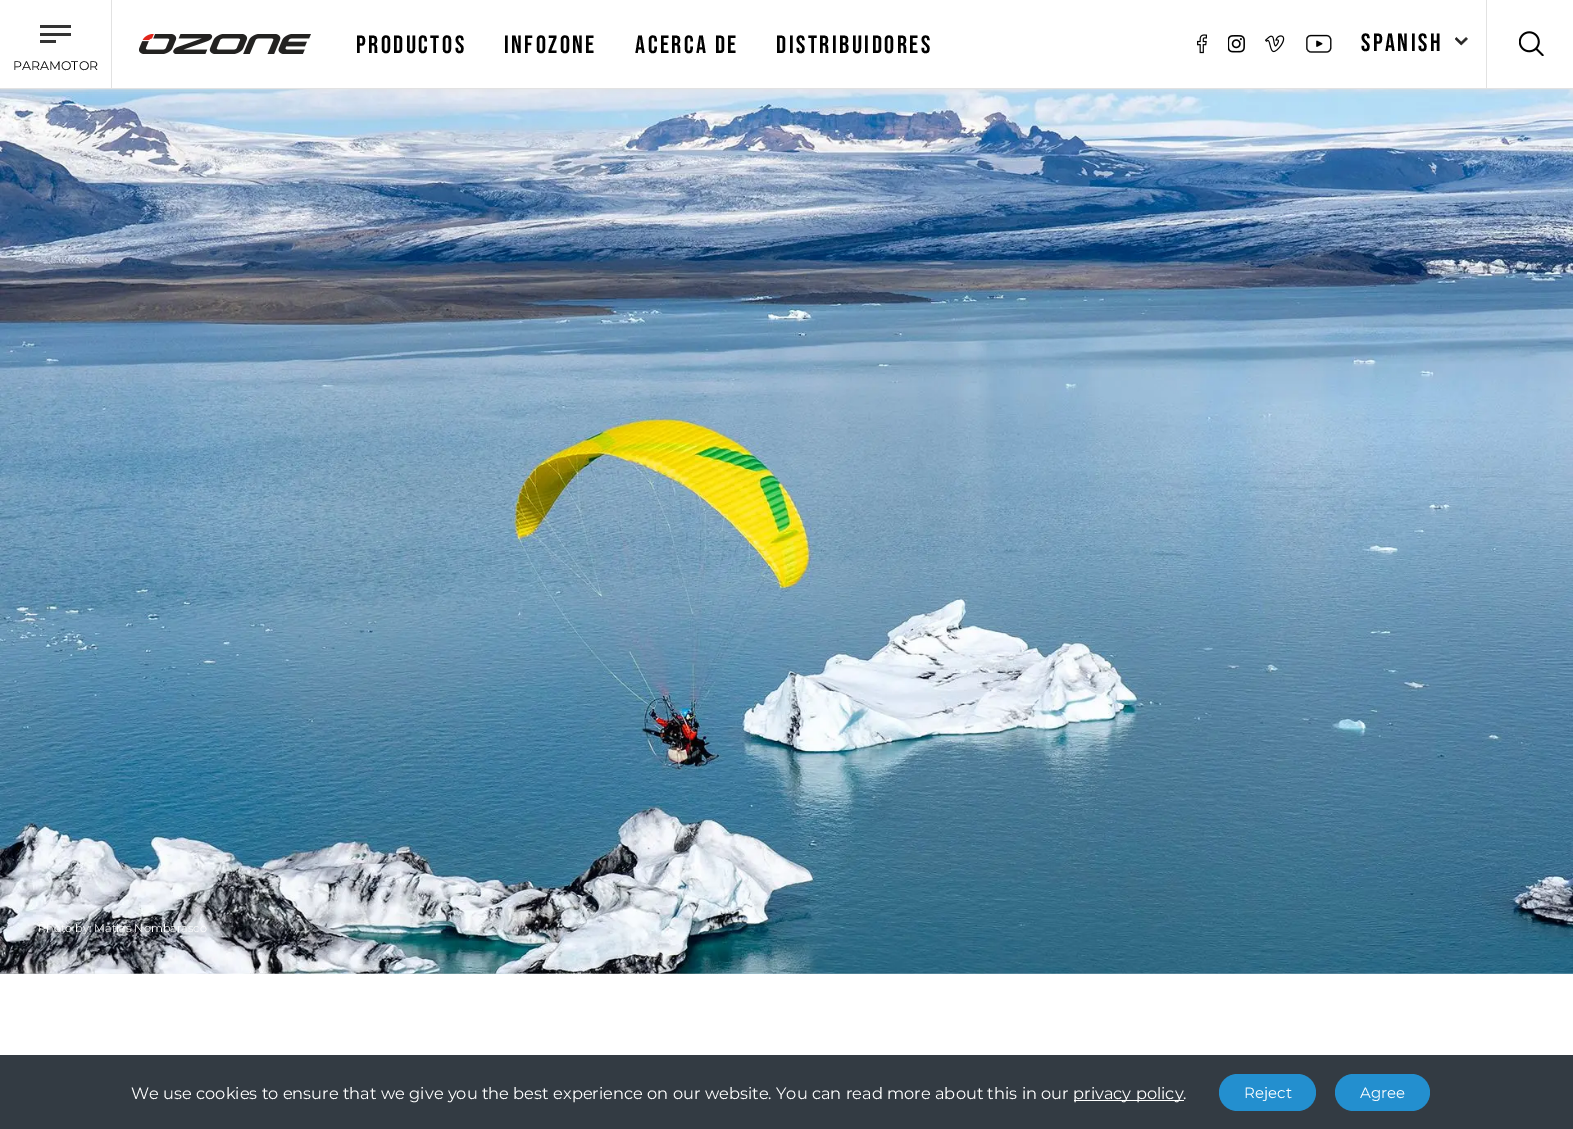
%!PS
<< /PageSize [1573 1129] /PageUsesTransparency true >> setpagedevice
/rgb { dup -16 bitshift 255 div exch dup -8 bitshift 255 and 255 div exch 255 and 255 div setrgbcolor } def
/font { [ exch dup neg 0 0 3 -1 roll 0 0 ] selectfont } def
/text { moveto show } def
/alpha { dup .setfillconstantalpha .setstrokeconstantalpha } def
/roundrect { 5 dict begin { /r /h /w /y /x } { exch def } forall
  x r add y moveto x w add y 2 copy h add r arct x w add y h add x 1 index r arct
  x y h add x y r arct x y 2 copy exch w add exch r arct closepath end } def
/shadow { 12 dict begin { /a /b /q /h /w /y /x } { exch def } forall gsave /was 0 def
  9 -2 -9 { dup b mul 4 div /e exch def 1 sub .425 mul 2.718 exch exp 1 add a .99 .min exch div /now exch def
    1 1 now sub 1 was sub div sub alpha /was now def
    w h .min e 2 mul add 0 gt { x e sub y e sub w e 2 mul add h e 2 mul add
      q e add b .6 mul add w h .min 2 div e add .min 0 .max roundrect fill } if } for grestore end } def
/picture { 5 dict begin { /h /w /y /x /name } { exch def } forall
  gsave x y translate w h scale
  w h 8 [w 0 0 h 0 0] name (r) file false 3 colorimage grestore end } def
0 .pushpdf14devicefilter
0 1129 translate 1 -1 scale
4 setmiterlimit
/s1 { /Montserrat-Regular 12.5 font 16#000000 rgb } def
/s2 { /Montserrat-Regular 11.25 font 16#FFFFFF rgb } def
/s3 { /Montserrat-Regular 16.25 font 16#FFFFFF rgb } def
/s4 { /Montserrat-Regular 15 font 16#FFFFFF rgb } def
16#FFFFFF rgb
0 0 1573 1129 rectfill
(pic9.raw) 0 973 1573 1 picture
(pic8.raw) 0 89 1573 885 picture
16#E2E2E2 rgb
0 0 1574 89 0 4 1 shadow
16#FFFFFF rgb
0 0 1573 88 rectfill
16#E2E2E2 rgb
0 88 1573 1 rectfill
(pic1.raw) 139 34 172 20 picture
/BebasNeue-Regular 25 font
16#000000 rgb
356 53 moveto 2.5 0 (PRODUCTOS) ashow
504 53 moveto 2.5 0 (INFOZONE) ashow
635 53 moveto 2.5 0 (ACERCA DE) ashow
776 53 moveto 2.5 0 (DISTRIBUIDORES) ashow
(pic2.raw) 1197 34 10 20 picture
(pic3.raw) 1228 35 17 18 picture
(pic4.raw) 1265 35 20 18 picture
(pic5.raw) 1306 34 26 19 picture
1361 51 moveto 2.5 0 (SPANISH) ashow
(pic6.raw) 1455 37 13 9 picture
16#E2E2E2 rgb
1486 0 1 88 rectfill
(pic7.raw) 1519 31 25 25 picture
111 0 1 88 rectfill
16#333333 rgb
40 25 31 3 rectfill
40 33 31 3 rectfill
40 40 16 3 rectfill
s1
(PARAMOTOR) 13 70 text
s2
(Photo by: Matias Nombarasco) 38 932 text
16#333B43 rgb
0 1055 1573 74 rectfill
s3
(We use cookies to ensure that we give you the best experience on our website. You can read more about this in our) 131 1099 text
1074 1100 110 1 rectfill
(privacy policy.) 1073 1099 text
16#238FCF rgb
1219 1074 97 37 18.5 roundrect fill
s4
(Reject) 1244 1098 text
16#238FCF rgb
1335 1074 95 37 18.5 roundrect fill
s4
(Agree) 1360 1098 text
.poppdf14devicefilter showpage
